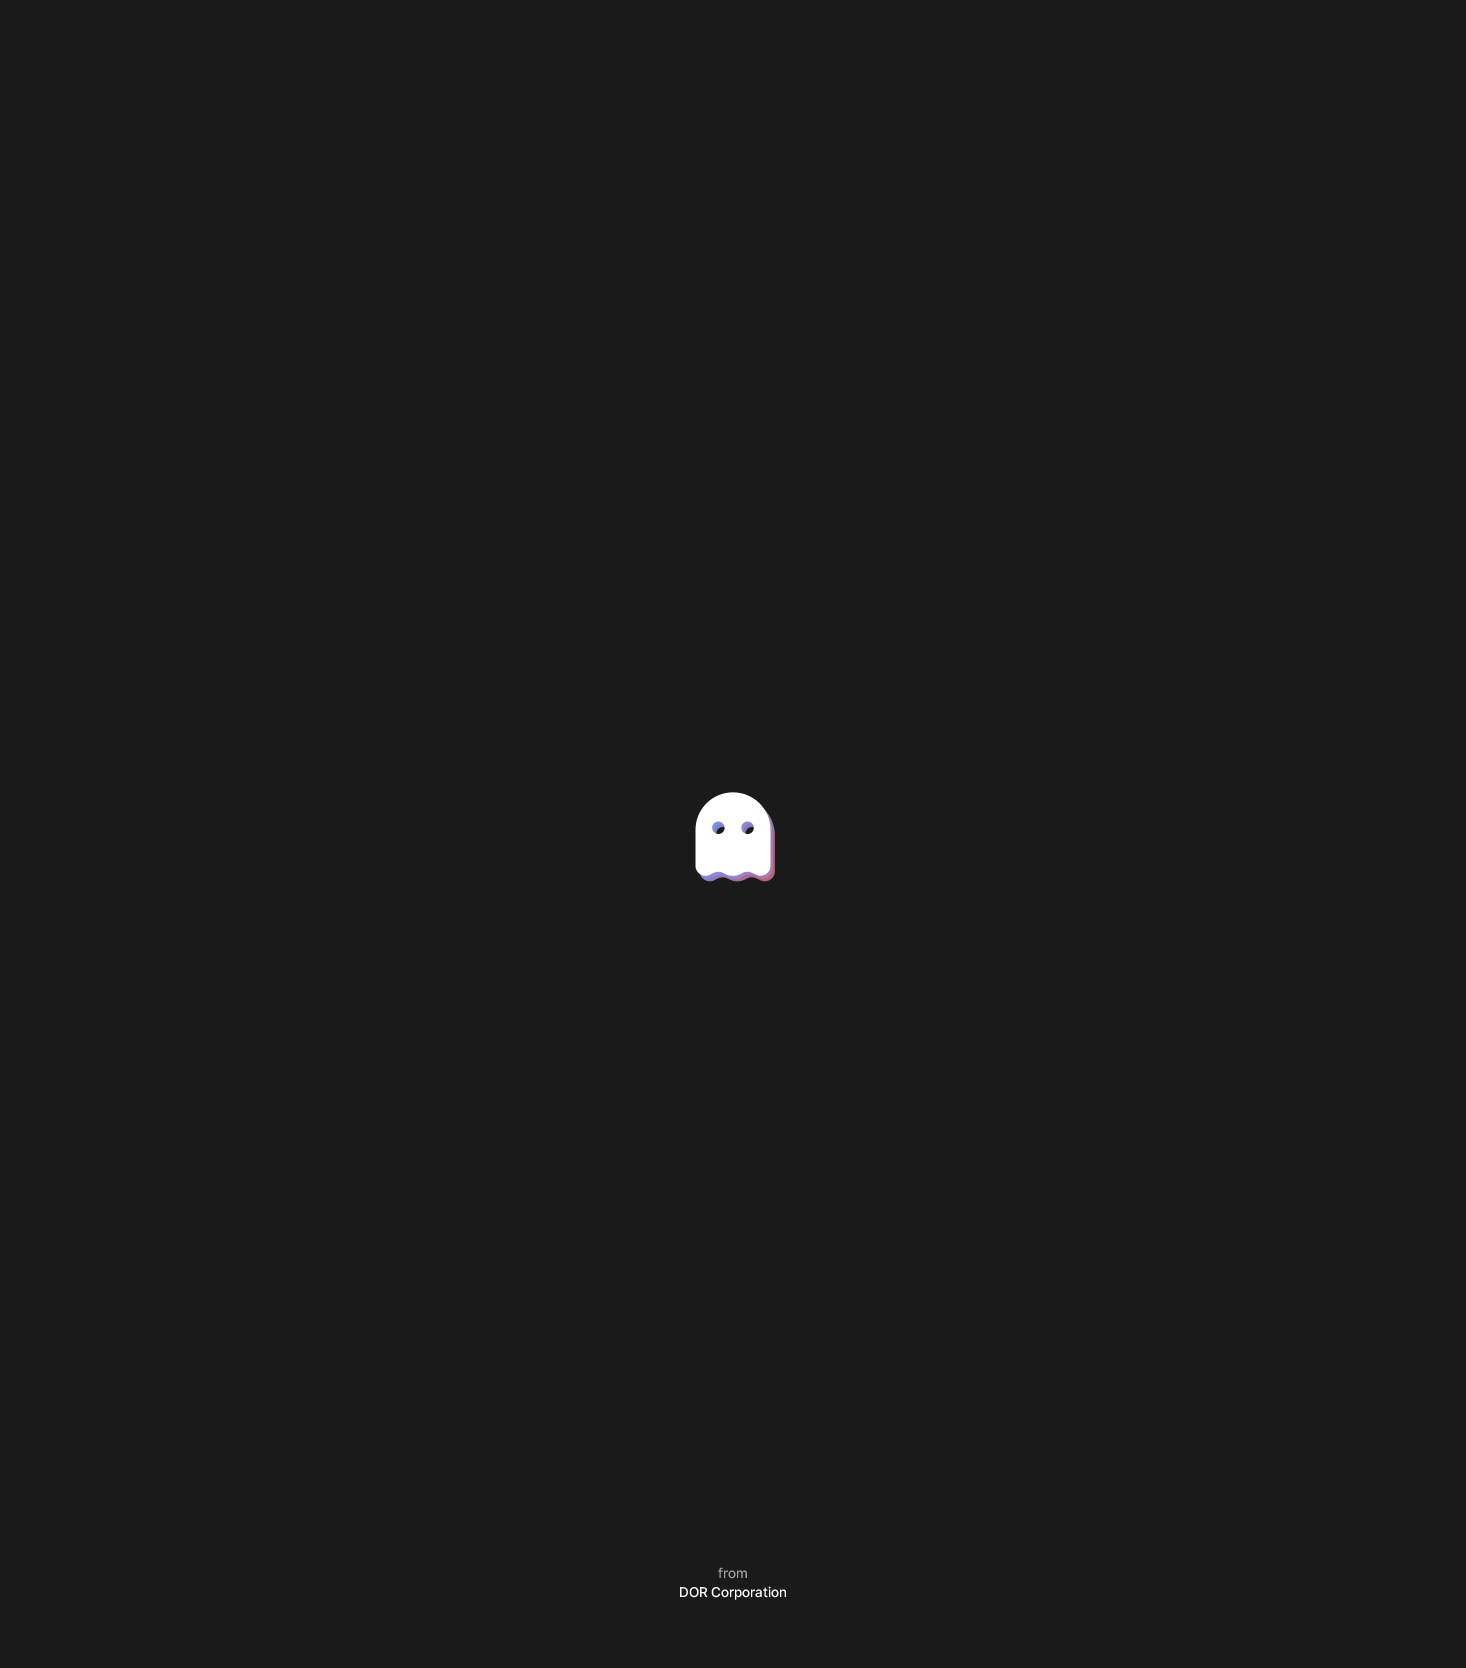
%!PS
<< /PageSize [1466 1668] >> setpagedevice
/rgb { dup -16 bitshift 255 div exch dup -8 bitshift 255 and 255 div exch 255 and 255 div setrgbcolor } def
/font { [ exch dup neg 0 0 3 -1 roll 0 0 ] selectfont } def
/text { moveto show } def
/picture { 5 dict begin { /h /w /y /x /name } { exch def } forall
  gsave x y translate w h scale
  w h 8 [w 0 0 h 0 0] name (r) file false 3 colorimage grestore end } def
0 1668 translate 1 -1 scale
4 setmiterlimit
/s1 { /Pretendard-Medium 14 font 16#9E9E9E rgb } def
/s2 { /Pretendard-Medium 14 font 16#FFFFFF rgb } def
16#1A1A1A rgb
0 0 1466 1668 rectfill
(pic1.raw) 695 792 80 90 picture
s1
(from) 718 1578 text
s2
(DOR Corporation) 679 1597 text
showpage
